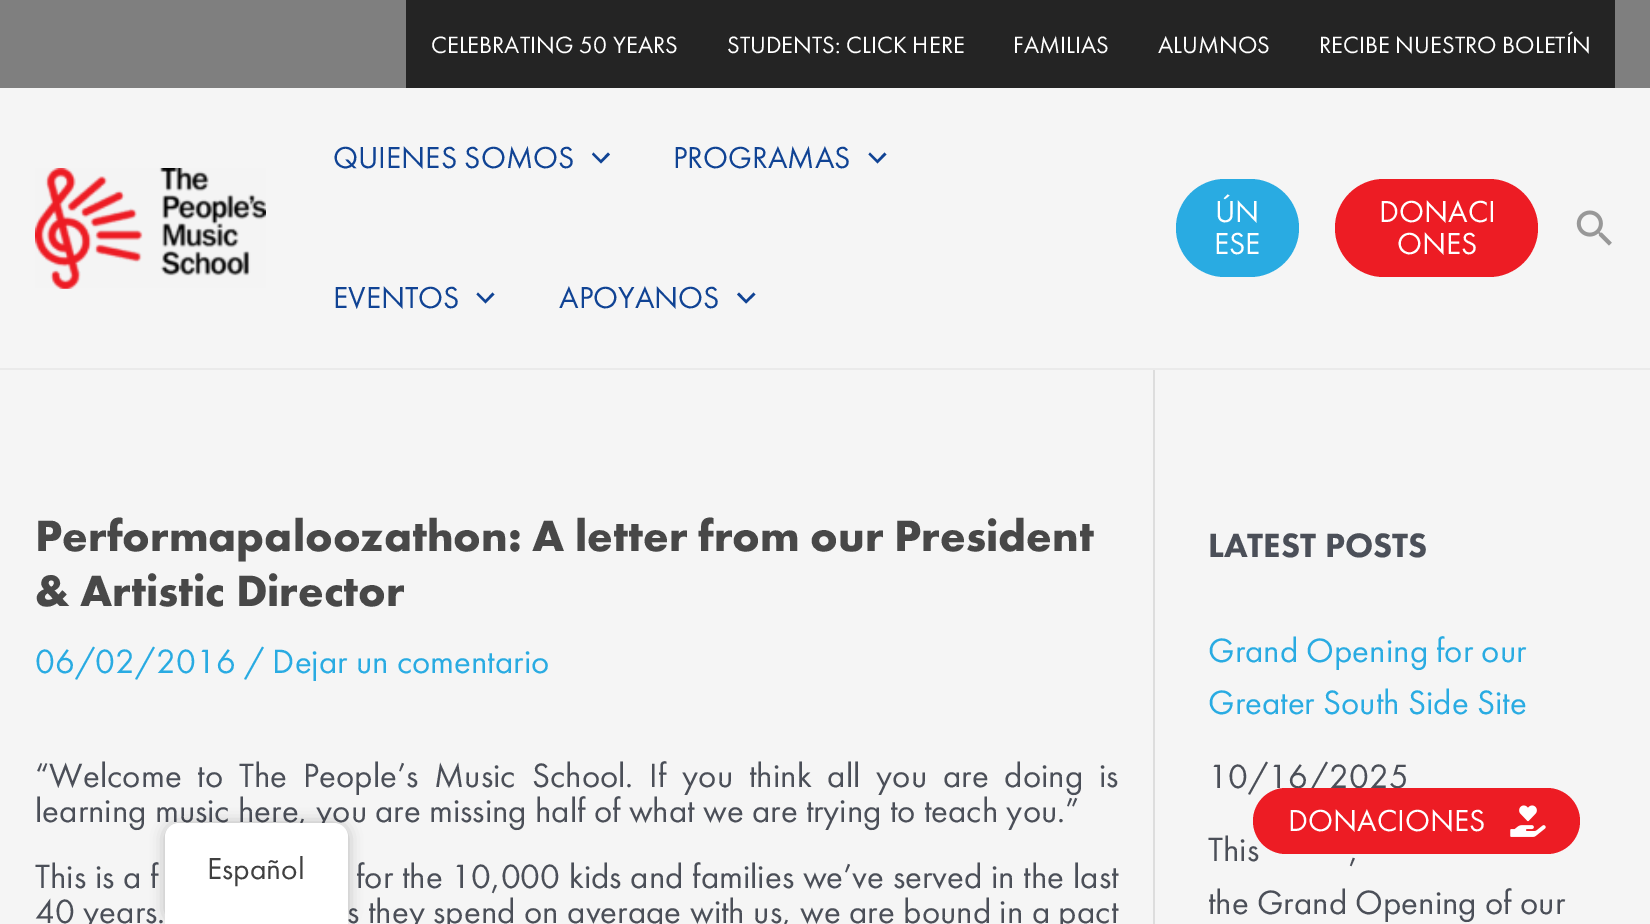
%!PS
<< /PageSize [1650 924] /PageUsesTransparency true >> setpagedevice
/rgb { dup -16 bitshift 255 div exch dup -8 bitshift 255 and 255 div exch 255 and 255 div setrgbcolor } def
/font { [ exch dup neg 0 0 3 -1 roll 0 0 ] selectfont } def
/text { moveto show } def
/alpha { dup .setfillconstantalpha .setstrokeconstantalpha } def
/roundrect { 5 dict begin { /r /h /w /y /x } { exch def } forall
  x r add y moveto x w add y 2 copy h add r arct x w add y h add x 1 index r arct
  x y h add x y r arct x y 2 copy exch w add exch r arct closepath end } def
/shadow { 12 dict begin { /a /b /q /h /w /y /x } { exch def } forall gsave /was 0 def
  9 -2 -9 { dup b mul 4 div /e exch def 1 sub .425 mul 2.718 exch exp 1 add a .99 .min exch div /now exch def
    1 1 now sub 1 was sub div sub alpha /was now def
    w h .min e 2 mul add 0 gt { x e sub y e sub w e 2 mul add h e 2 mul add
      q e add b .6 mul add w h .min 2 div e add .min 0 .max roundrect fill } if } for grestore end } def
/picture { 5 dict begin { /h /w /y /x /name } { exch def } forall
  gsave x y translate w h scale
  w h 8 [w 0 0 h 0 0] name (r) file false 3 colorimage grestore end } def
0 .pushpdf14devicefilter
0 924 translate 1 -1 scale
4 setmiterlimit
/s1 { /FuturaPT-Regular 24.5 font 16#FFFFFF rgb } def
/s2 { /FuturaPT-Regular 31.5 font 16#104394 rgb } def
/s3 { /FuturaPT-Regular 31.5 font 16#FFFFFF rgb } def
/s4 { /FuturaPT-Bold 45.5 font 16#484848 rgb } def
/s5 { /FuturaPT-Regular 35 font 16#29ABE2 rgb } def
/s6 { /FuturaPT-Regular 35 font 16#4B4F58 rgb } def
/s7 { /FuturaPT-Black 35 font 16#4B4F58 rgb } def
/s8 { /FuturaPT-Regular 31.5 font 16#404040 rgb } def
16#F5F5F5 rgb
0 0 1650 924 rectfill
16#7F7F7F rgb
0 0 1650 88 rectfill
16#242424 rgb
406 0 1209 88 rectfill
s1
(CELEBRATING 50 YEARS) 431 53 text
(STUDENTS: CLICK HERE) 727 53 text
(FAMILIAS) 1013 53 text
(ALUMNOS) 1158 53 text
(RECIBE NUESTRO BOLETÍN) 1319 53 text
16#DDDDDD rgb
1153 369 2 555 rectfill
16#EAEAEA rgb
0 368 1650 2 rectfill
(pic1.raw) 35 168 231 121 picture
s2
(QUIENES SOMOS) 333 168 text
592 154.5 moveto 601 163.5 lineto 610 154.5 lineto 608 152.5 lineto 601 160 lineto 593.5 152.5 lineto closepath fill
(PROGRAMAS) 673 168 text
868.5 154.5 moveto 877.5 163.5 lineto 886.5 154.5 lineto 884.5 152.5 lineto 877.5 160 lineto 870 152.5 lineto closepath fill
(EVENTOS) 333 308 text
476.5 294.5 moveto 485.5 303.5 lineto 494.5 294.5 lineto 492.5 292.5 lineto 485.5 300 lineto 478 292.5 lineto closepath fill
(APOYANOS) 559 308 text
737 294.5 moveto 746 303.5 lineto 755.5 294.5 lineto 753.5 292.5 lineto 746 300 lineto 739 292.5 lineto closepath fill
16#29ABE2 rgb
1176 179 123 98 49 roundrect fill
s3
(ÚN) 1215 222 text
(ESE) 1214 254 text
16#ED1C24 rgb
1335 179 203 98 49 roundrect fill
s3
(DONACI) 1379 222 text
(ONES) 1397 254 text
(pic2.raw) 1576 210 36 36 picture
s4
(Performapaloozathon: A letter from our President) 35 551 text
(& Artistic Director) 35 606 text
s5
(06/02/2016 / Dejar un comentario) 35 673 text
16#4B4F58 rgb
35 787 moveto 7.75 0 32 (“Welcome to The People’s Music School. If you think all you are doing is) widthshow
(learning music here, you are missing half of what we are trying to teach you.”) 35 822 text
35 888 moveto 0.5 0 32 (This is a f) widthshow
356 888 moveto 0.5 0 32 (for the 10,000 kids and families we’ve served in the last) widthshow
35 923 moveto 0.3 0 32 (40 years.) widthshow
347 923 moveto 0.3 0 32 (s they spend on average with us, we are bound in a pact) widthshow
s7
(LATEST POSTS) 1208 557 text
s5
(Grand Opening for our) 1208 662 text
(Greater South Side Site) 1208 714 text
s6
(10/16/2025) 1208 788 text
(This) 1208 861 text
(,) 1349 861 text
(the Grand Opening of our) 1208 914 text
16#ED1C24 rgb
1253 788 327 66 33 roundrect fill
s3
(DONACIONES) 1288 831 text
(pic3.raw) 1510 805 36 32 picture
16#000000 rgb
165 823 183 101 14 7 0.25 shadow
16#FFFFFF rgb
179 823 moveto 334 823 lineto 341.5 823 348 829.5 348 837 curveto 348 924 lineto 165 924 lineto 165 837 lineto 165 829.5 171.5 823 179 823 curveto closepath fill
s8
(Español) 207 879 text
.poppdf14devicefilter showpage
